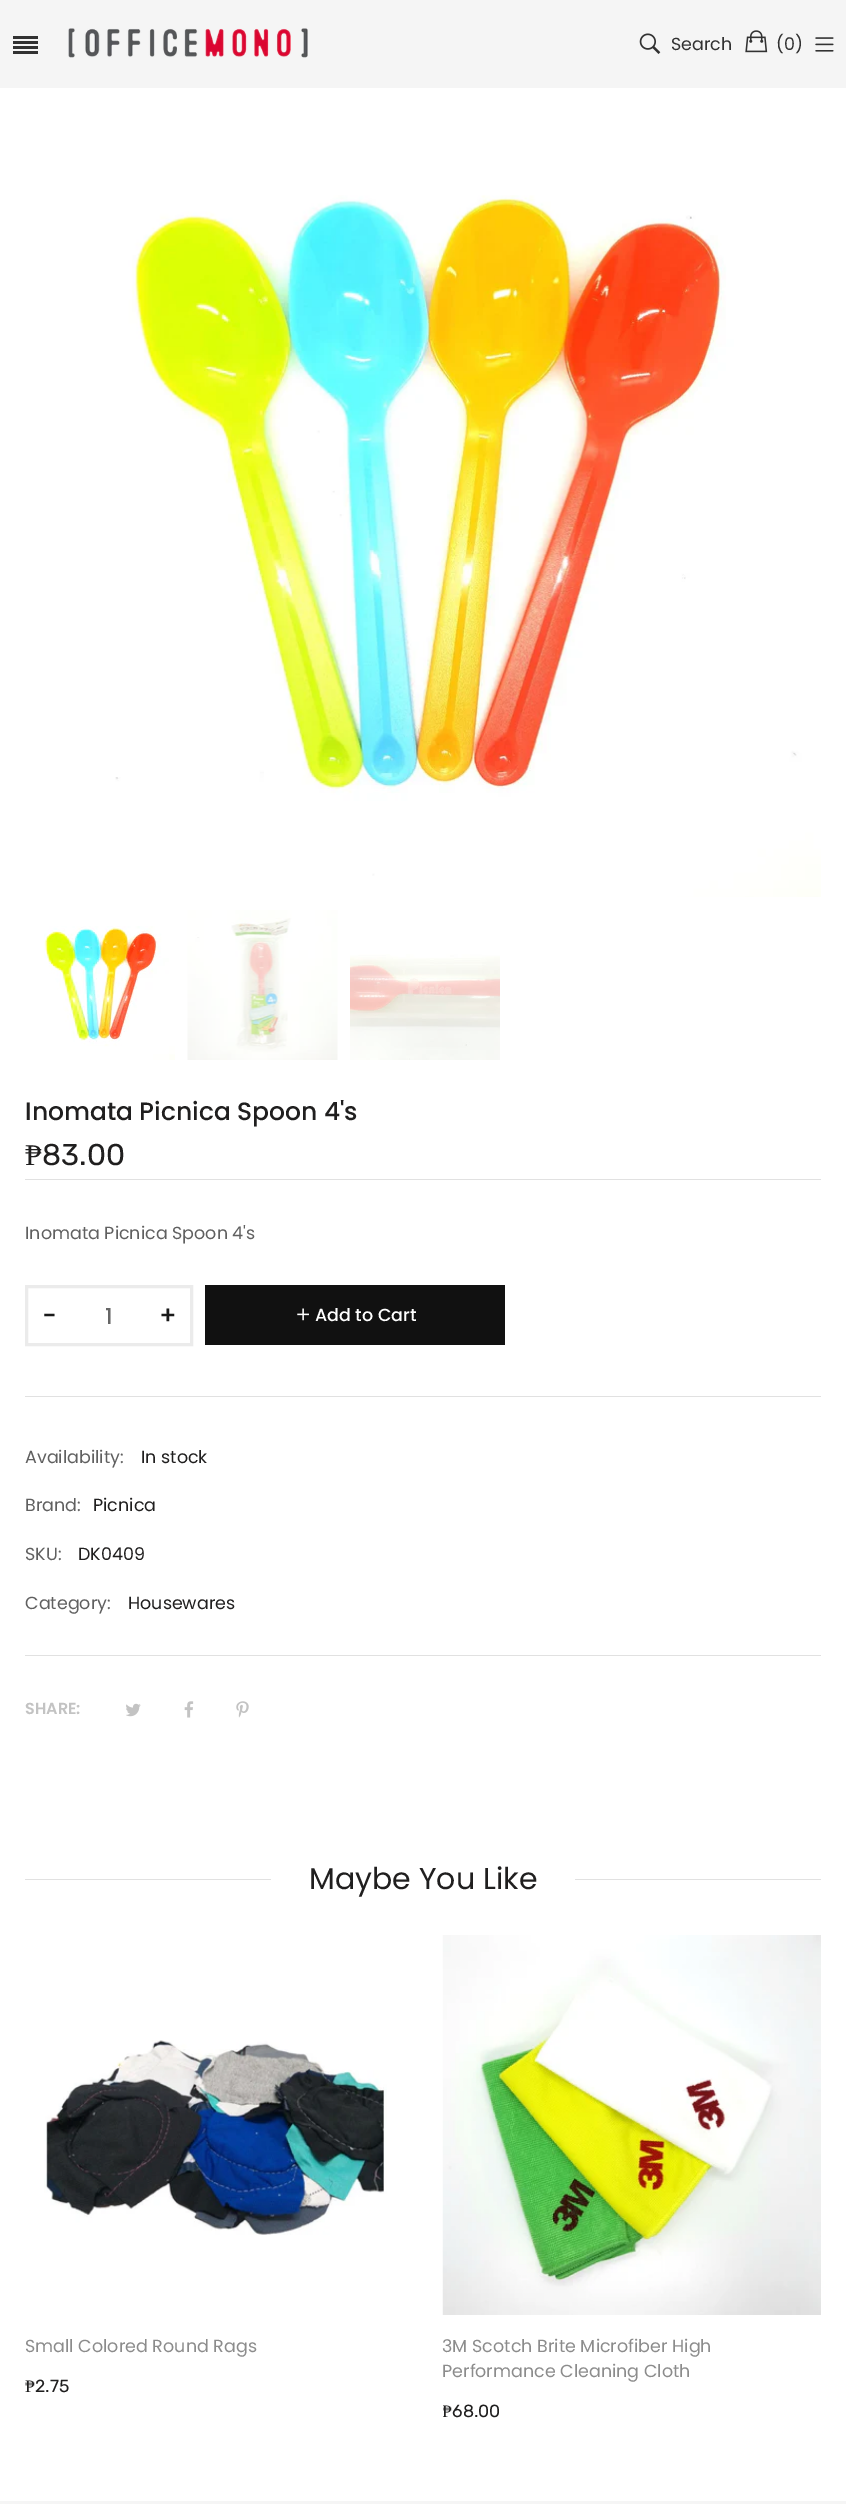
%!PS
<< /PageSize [846 2504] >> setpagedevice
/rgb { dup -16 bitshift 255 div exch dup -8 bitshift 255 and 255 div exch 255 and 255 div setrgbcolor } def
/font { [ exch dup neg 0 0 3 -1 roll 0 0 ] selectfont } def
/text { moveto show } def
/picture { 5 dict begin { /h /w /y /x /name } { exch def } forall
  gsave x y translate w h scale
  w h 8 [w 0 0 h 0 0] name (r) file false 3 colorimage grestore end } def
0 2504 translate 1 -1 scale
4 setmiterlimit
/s1 { /Poppins-Regular 17.5 font 16#323232 rgb } def
/s2 { /Poppins-Medium 25 font 16#201F1F rgb } def
/s3 { /LiberationSerif-Regular 30 font 16#201F1F rgb } def
/s4 { /Rubik-Regular 30 font 16#201F1F rgb } def
/s5 { /Poppins-Regular 17.5 font 16#606060 rgb } def
/s6 { /Poppins-Medium 25 font 16#1A1A1A rgb } def
/s7 { /Poppins-Medium 22 font 16#666666 rgb } def
/s8 { /Poppins-Medium 17.5 font 16#FFFFFF rgb } def
/s9 { /Poppins-Regular 17.5 font 16#201F1F rgb } def
/s10 { /Poppins-SemiBold 16 font 16#C3C3C3 rgb } def
/s11 { /Poppins-Regular 30 font 16#201F1F rgb } def
/s12 { /Poppins-Regular 17.5 font 16#8C8C8C rgb } def
/s13 { /LiberationSerif-Regular 17.5 font 16#201F1F rgb } def
/s14 { /Rubik-Regular 17.5 font 16#201F1F rgb } def
16#F5F5F5 rgb
0 0 846 2504 rectfill
16#323232 rgb
13 36 25 3 rectfill
13 41 25 3 rectfill
13 46 25 3 rectfill
13 51 25 3 rectfill
(pic1.raw) 68 28 240 30 picture
(pic2.raw) 639 33 22 21 picture
s1
(Search) 671 50 text
(pic3.raw) 745 30 23 23 picture
(\(0\)) 776 50 text
(pic4.raw) 815 37 19 15 picture
16#FFFFFF rgb
13 setlinewidth
-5.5 94.5 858 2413 rectstroke
1 101 845 2400 rectfill
(pic5.raw) 115 195 706 702 picture
(pic6.raw) 44 926 131 134 picture
(pic7.raw) 187 910 151 150 picture
(pic8.raw) 350 954 150 106 picture
s2
(Inomata Picnica Spoon 4's) 25 1120 text
s3
(₱) 25 1165 text
s4
(83.00) 42 1165 text
16#E1E1E1 rgb
25 1179 796 1 rectfill
s5
(Inomata Picnica Spoon 4's) 25 1239 text
16#E1E1E1 rgb
25 1396 796 1 rectfill
16#EBEBEB rgb
3 setlinewidth
26.5 1286.5 165 58 rectstroke
s6
(−) 42 1324 text
s7
(1) 105 1324 text
s6
(+) 159 1324 text
16#111111 rgb
205 1285 300 60 rectfill
(pic9.raw) 297 1308 12 13 picture
s8
(Add to Cart) 315 1321 text
16#E1E1E1 rgb
25 1655 796 1 rectfill
s5
(Availability:) 25 1463 text
s9
(In stock) 141 1463 text
s5
(Brand:) 25 1511 text
s9
(Picnica) 93 1511 text
s5
(SKU:) 25 1560 text
s9
(DK0409) 78 1560 text
s5
(Category:) 25 1609 text
s9
(Housewares) 128 1609 text
s10
(SHARE:) 25 1714 text
(pic10.raw) 126 1703 15 14 picture
(pic11.raw) 184 1701 10 17 picture
(pic12.raw) 236 1701 13 17 picture
16#E1E1E1 rgb
25 1879 796 1 rectfill
16#FFFFFF rgb
271 1879 304 1 rectfill
s11
(Maybe You Like) 309 1889 text
(pic13.raw) 44 2040 343 195 picture
s12
(Small Colored Round Rags) 25 2352 text
s13
(₱) 25 2392 text
s14
(2.75) 35 2392 text
(pic14.raw) 442 1935 379 380 picture
s12
(3M Scotch Brite Microfiber High) 442 2352 text
(Performance Cleaning Cloth) 442 2377 text
gsave
443 2315 378 111 rectclip
s13
(₱) 442 2417 text
grestore
s14
(68.00) 452 2417 text
16#F5F5F5 rgb
0 2501 846 3 rectfill
showpage
